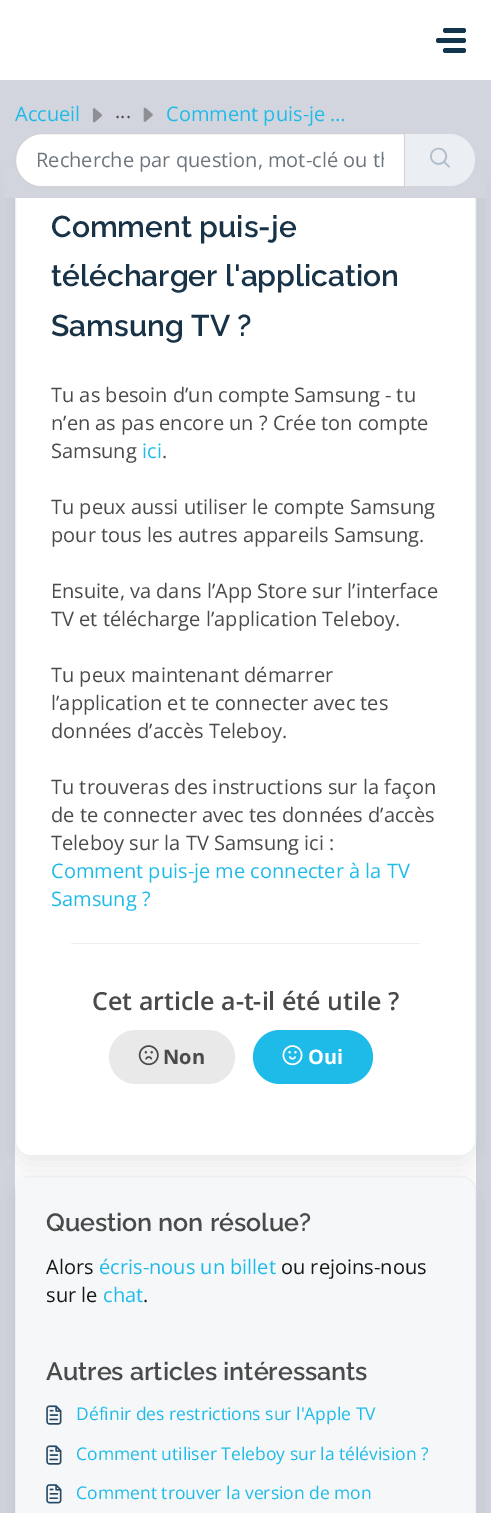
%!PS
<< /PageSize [491 1513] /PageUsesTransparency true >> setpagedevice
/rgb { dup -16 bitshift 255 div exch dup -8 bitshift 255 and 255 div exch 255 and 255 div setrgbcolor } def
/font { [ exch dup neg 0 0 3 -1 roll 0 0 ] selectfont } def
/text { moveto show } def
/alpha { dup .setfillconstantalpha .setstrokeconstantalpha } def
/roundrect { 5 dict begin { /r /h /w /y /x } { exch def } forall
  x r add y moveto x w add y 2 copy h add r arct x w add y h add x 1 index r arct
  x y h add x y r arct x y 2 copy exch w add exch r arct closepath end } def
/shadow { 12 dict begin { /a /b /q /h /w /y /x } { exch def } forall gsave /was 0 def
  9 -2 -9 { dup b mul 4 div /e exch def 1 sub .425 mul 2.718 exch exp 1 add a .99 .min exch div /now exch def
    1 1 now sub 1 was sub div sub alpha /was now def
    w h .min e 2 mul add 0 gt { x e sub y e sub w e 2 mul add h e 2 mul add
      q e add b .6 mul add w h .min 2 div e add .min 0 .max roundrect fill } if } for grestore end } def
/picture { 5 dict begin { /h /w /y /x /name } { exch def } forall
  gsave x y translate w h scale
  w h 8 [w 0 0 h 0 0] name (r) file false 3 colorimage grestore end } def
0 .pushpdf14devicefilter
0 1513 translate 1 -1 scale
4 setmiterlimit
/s1 { /OpenSans-Regular 20 font 16#1FBBE8 rgb } def
/s2 { /OpenSans-Regular 20 font 16#4A4A4A rgb } def
/s3 { /OpenSans-Regular 20 font 16#6C757D rgb } def
/s4 { /Raleway-SemiBold 30 font 16#183247 rgb } def
/s5 { /OpenSans-SemiBold 25 font 16#4A4A4A rgb } def
/s6 { /OpenSans-Bold 20 font 16#4A4A4A rgb } def
/s7 { /OpenSans-Bold 20 font 16#FFFFFF rgb } def
/s8 { /Raleway-SemiBold 25 font 16#4A4A4A rgb } def
/s9 { /OpenSans-Regular 20 font 16#171717 rgb } def
/s10 { /OpenSans-Regular 17.5 font 16#1FBBE8 rgb } def
16#D2D5DE rgb
0 0 491 1513 rectfill
16#FFFFFF rgb
0 0 491 80 rectfill
16#12344D rgb
443 28 23 5 2.5 roundrect fill
436 38 30 5 2.5 roundrect fill
443 48 23 5 2.5 roundrect fill
16#FFFFFF rgb
15 198 461 995 rectfill
gsave
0 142 moveto 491 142 lineto 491 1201 lineto 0 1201 lineto closepath 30 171 moveto 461 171 lineto 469.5 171 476 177.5 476 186 curveto 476 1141 lineto 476 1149.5 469.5 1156 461 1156 curveto 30 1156 lineto 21.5 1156 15 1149.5 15 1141 curveto 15 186 lineto 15 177.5 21.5 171 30 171 curveto closepath eoclip newpath
16#27313A rgb
15 179 461 985 15 12 0.1 shadow
grestore
16#EBEFF3 rgb
15.5 171.5 460 984 14.5 roundrect stroke
16#D2D5DE rgb
4 167 483 31 rectfill
s1
(Accueil) 15 121 text
(pic1.raw) 92 108 10 15 picture
s2
(...) 115 118 text
(pic2.raw) 143 107 10 15 picture
s1
(Comment puis-je …) 166 121 text
16#FFFFFF rgb
42 134 moveto 404 134 lineto 404 186 lineto 42 186 lineto 27.5 186 16 174.5 16 160 curveto 16 145.5 27.5 134 42 134 curveto closepath fill
16#D2D2D2 rgb
42.5 133.5 moveto 404.5 133.5 lineto 404.5 187.5 lineto 42.5 187.5 lineto 27.5 187.5 15.5 175.5 15.5 160.5 curveto 15.5 145.5 27.5 133.5 42.5 133.5 curveto closepath stroke
gsave
36 146 348 28 rectclip
s3
(Recherche par question, mot-clé ou th) 36 167 text
grestore
16#EBEFF3 rgb
405 134 moveto 449 134 lineto 463.5 134 475 145.5 475 160 curveto 475 174.5 463.5 186 449 186 curveto 405 186 lineto closepath fill
(pic3.raw) 430 147 20 21 picture
s4
(Comment puis-je) 51 237 text
(télécharger l'application) 51 286 text
(Samsung TV ?) 51 336 text
s2
(Tu as besoin d’un compte Samsung - tu) 51 402 text
(n’en as pas encore un ? Crée ton compte) 51 430 text
(Samsung) 51 458 text
s1
(ici) 142 458 text
s2
(.) 162 458 text
(Tu peux aussi utiliser le compte Samsung) 51 514 text
(pour tous les autres appareils Samsung.) 51 542 text
(Ensuite, va dans l’App Store sur l’interface) 51 598 text
(TV et télécharge l’application Teleboy.) 51 626 text
(Tu peux maintenant démarrer) 51 682 text
(l’application et te connecter avec tes) 51 710 text
(données d’accès Teleboy.) 51 738 text
(Tu trouveras des instructions sur la façon) 51 794 text
(de te connecter avec tes données d’accès) 51 822 text
(Teleboy sur la TV Samsung ici :) 51 850 text
s1
(Comment puis-je me connecter à la TV) 51 878 text
(Samsung ?) 51 906 text
16#EBEFF3 rgb
71 943 349 1 rectfill
s5
(Cet article a-t-il été utile ?) 92 1010 text
16#E9E9E9 rgb
109 1030 126 54 27 roundrect fill
(pic4.raw) 138 1045 21 21 picture
s6
(Non) 163 1064 text
16#1FBBE8 rgb
253 1030 120 54 27 roundrect fill
(pic5.raw) 282 1045 21 21 picture
s7
(Oui) 308 1064 text
16#27313A rgb
15 1184 461 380 15 12 0.1 shadow
16#EBEFF3 rgb
15.5 1176.5 460 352 14.5 roundrect stroke
16#F5F7F9 rgb
16 1178 moveto 460 1178 lineto 468.5 1178 475 1184.5 475 1193 curveto 475 1513 lineto 475 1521.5 468.5 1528 460 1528 curveto 16 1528 lineto closepath fill
s8
(Question non résolue?) 46 1231 text
s9
(Alors) 46 1274 text
s1
(écris-nous un billet) 99 1274 text
s9
(ou rejoins-nous) 281 1274 text
(sur le) 46 1302 text
s1
(chat) 103 1302 text
s9
(.) 143 1302 text
s8
(Autres articles intéressants) 46 1380 text
(pic6.raw) 46 1405 16 20 picture
s10
(Définir des restrictions sur l'Apple TV) 76 1420 text
(pic6.raw) 46 1445 16 20 picture
(Comment utiliser Teleboy sur la télévision ?) 76 1460 text
(pic7.raw) 46 1484 16 20 picture
(Comment trouver la version de mon) 76 1499 text
.poppdf14devicefilter showpage
